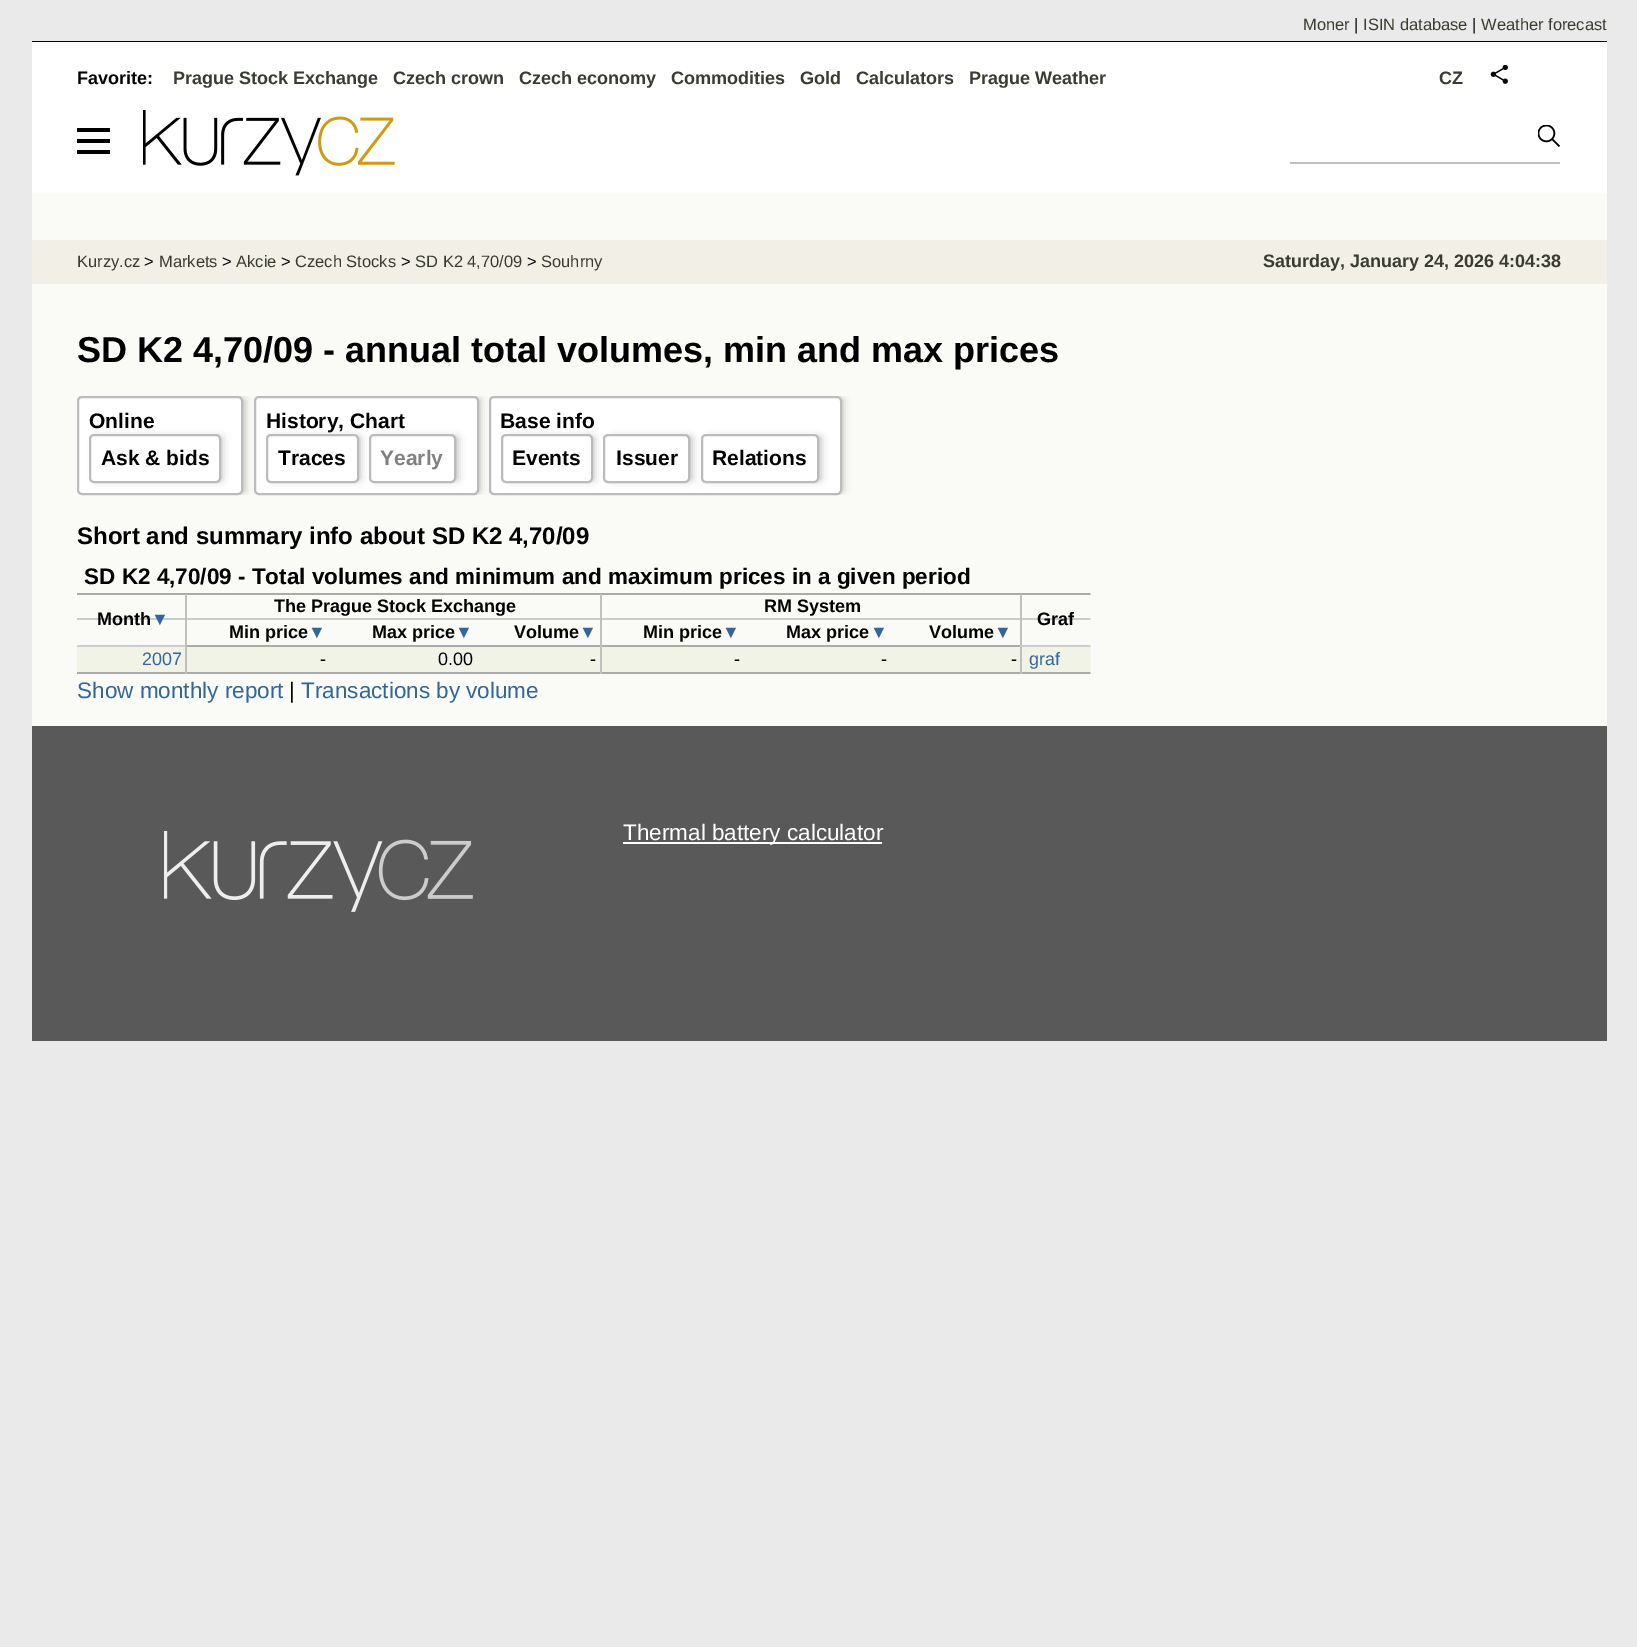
%!PS
<< /PageSize [1637 1647] /PageUsesTransparency true >> setpagedevice
/rgb { dup -16 bitshift 255 div exch dup -8 bitshift 255 and 255 div exch 255 and 255 div setrgbcolor } def
/font { [ exch dup neg 0 0 3 -1 roll 0 0 ] selectfont } def
/text { moveto show } def
/alpha { dup .setfillconstantalpha .setstrokeconstantalpha } def
/roundrect { 5 dict begin { /r /h /w /y /x } { exch def } forall
  x r add y moveto x w add y 2 copy h add r arct x w add y h add x 1 index r arct
  x y h add x y r arct x y 2 copy exch w add exch r arct closepath end } def
/shadow { 12 dict begin { /a /b /q /h /w /y /x } { exch def } forall gsave /was 0 def
  9 -2 -9 { dup b mul 4 div /e exch def 1 sub .425 mul 2.718 exch exp 1 add a .99 .min exch div /now exch def
    1 1 now sub 1 was sub div sub alpha /was now def
    w h .min e 2 mul add 0 gt { x e sub y e sub w e 2 mul add h e 2 mul add
      q e add b .6 mul add w h .min 2 div e add .min 0 .max roundrect fill } if } for grestore end } def
/picture { 5 dict begin { /h /w /y /x /name } { exch def } forall
  gsave x y translate w h scale
  w h 8 [w 0 0 h 0 0] name (r) file false 3 colorimage grestore end } def
0 .pushpdf14devicefilter
0 1647 translate 1 -1 scale
4 setmiterlimit
/s1 { /LiberationSans-Regular 16.5 font 16#393C31 rgb } def
/s2 { /LiberationSans-Regular 16.5 font 16#000000 rgb } def
/s3 { /LiberationSans-Bold 18 font 16#000000 rgb } def
/s4 { /LiberationSans-Bold 18 font 16#393C31 rgb } def
/s5 { /LiberationSans-Bold 36 font 16#000000 rgb } def
/s6 { /LiberationSans-Bold 21 font 16#000000 rgb } def
/s7 { /LiberationSans-Bold 21 font 16#808080 rgb } def
/s8 { /LiberationSans-Bold 24 font 16#000000 rgb } def
/s9 { /LiberationSans-Bold 22.5 font 16#000000 rgb } def
/s10 { /LiberationSans-Bold 18 font 16#336699 rgb } def
/s11 { /LiberationSans-Regular 18 font 16#336699 rgb } def
/s12 { /LiberationSans-Regular 18 font 16#000000 rgb } def
/s13 { /LiberationSans-Regular 22.5 font 16#336699 rgb } def
/s14 { /LiberationSans-Regular 22.5 font 16#000000 rgb } def
/s15 { /LiberationSans-Regular 22.5 font 16#FFFFFF rgb } def
16#EAEAEA rgb
0 0 1637 1647 rectfill
16#FAFBF7 rgb
32 194 1575 532 rectfill
16#000000 rgb
32 41 1575 1 rectfill
s1
(Moner) 1303 30 text
s2
(|) 1354 30 text
s1
(ISIN database) 1363 30 text
s2
(|) 1472 30 text
s1
(Weather forecast) 1481 30 text
16#FFFFFF rgb
32 42 1575 152 rectfill
16#000000 rgb
77 128 33 4 rectfill
(pic1.raw) 143 110 252 66 picture
16#C0C0C0 rgb
1290 162 270 2 rectfill
(pic2.raw) 1538 125 22 22 picture
16#000000 rgb
77 139 33 4 rectfill
77 150 33 4 rectfill
s3
(Favorite:) 77 84 text
s4
(Prague Stock Exchange) 173 84 text
(Czech crown) 393 84 text
(Czech economy) 519 84 text
(Commodities) 671 84 text
(Gold) 800 84 text
(Calculators) 856 84 text
(Prague Weather) 969 84 text
(CZ) 1439 84 text
(pic3.raw) 1490 65 18 19 picture
16#F2EFE6 rgb
32 240 1575 44 rectfill
s1
(Kurzy.cz) 77 267 text
s2
(>) 144 267 text
s1
(Markets) 159 267 text
s2
(>) 222 267 text
s1
(Akcie) 236 267 text
s2
(>) 281 267 text
s1
(Czech Stocks) 295 267 text
s2
(>) 401 267 text
s1
(SD K2 4,70/09) 415 267 text
s2
(>) 527 267 text
s1
(Souhrny) 541 267 text
s4
(Saturday, January 24, 2026 4:04:38) 1263 267 text
s5
(SD K2 4,70/09 - annual total volumes, min and max prices) 77 362 text
gsave
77 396 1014 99 rectclip
16#BBBBBB rgb
84 399 161 93 1.5 4 1 shadow
grestore
16#FFFFFF rgb
78 397 164 97 4 roundrect gsave fill grestore
16#BBBBBB rgb
2 setlinewidth
stroke
s6
(Online) 89 428 text
16#BBBBBB rgb
96 437 126 43 1.5 4 1 shadow
16#FFFFFF rgb
90 435 130 47 4 roundrect gsave fill grestore
16#BBBBBB rgb
stroke
s6
(Ask & bids) 101 465 text
gsave
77 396 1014 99 rectclip
16#BBBBBB rgb
261 399 219 93 1.5 4 1 shadow
grestore
16#FFFFFF rgb
255 397 223 97 4 roundrect gsave fill grestore
16#BBBBBB rgb
stroke
s6
(History, Chart) 266 428 text
16#BBBBBB rgb
273 437 87 43 1.5 4 1 shadow
16#FFFFFF rgb
267 435 91 47 4 roundrect gsave fill grestore
16#BBBBBB rgb
stroke
s6
(Traces) 278 465 text
16#BBBBBB rgb
377 437 81 43 1.5 4 1 shadow
16#FFFFFF rgb
370 435 85 47 4 roundrect gsave fill grestore
16#BBBBBB rgb
stroke
s7
(Yearly) 380 465 text
gsave
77 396 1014 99 rectclip
16#BBBBBB rgb
497 399 346 93 1.5 4 1 shadow
grestore
16#FFFFFF rgb
490 397 351 97 4 roundrect gsave fill grestore
16#BBBBBB rgb
stroke
s6
(Base info) 500 428 text
16#BBBBBB rgb
509 437 85 43 1.5 4 1 shadow
16#FFFFFF rgb
502 435 90 47 4 roundrect gsave fill grestore
16#BBBBBB rgb
stroke
s6
(Events) 512 465 text
16#BBBBBB rgb
611 437 81 43 1.5 4 1 shadow
16#FFFFFF rgb
604 435 85 47 4 roundrect gsave fill grestore
16#BBBBBB rgb
stroke
s6
(Issuer) 616 465 text
16#BBBBBB rgb
708 437 113 43 1.5 4 1 shadow
16#FFFFFF rgb
702 435 116 47 4 roundrect gsave fill grestore
16#BBBBBB rgb
stroke
s6
(Relations) 712 465 text
s8
(Short and summary info about SD K2 4,70/09) 77 544 text
16#AAAAAA rgb
77 593 1014 2 rectfill
16#D2D3D1 rgb
1090 593 1 2 rectfill
s9
(SD K2 4,70/09 - Total volumes and minimum and maximum prices in a given period) 84 584 text
16#CCCCCC rgb
77 618 1014 2 rectfill
16#E3E4E2 rgb
1090 618 1 2 rectfill
16#C0C0C0 rgb
185 594 2 26 rectfill
s3
(The Prague Stock Exchange) 274 612 text
16#C0C0C0 rgb
600 594 2 26 rectfill
s3
(RM System) 764 612 text
(Month) 97 625 text
s10
(▼) 151 625 text
16#C0C0C0 rgb
1020 594 2 53 rectfill
s3
(Graf) 1037 625 text
16#CCCCCC rgb
77 645 1014 2 rectfill
16#E3E4E2 rgb
1090 645 1 2 rectfill
16#AAAAAA rgb
185 645 835 2 rectfill
16#C0C0C0 rgb
185 620 2 27 rectfill
s3
(Min price) 229 638 text
s10
(▼) 308 638 text
s3
(Max price) 372 638 text
s10
(▼) 455 638 text
s3
(Volume) 514 638 text
s10
(▼) 579 638 text
16#C0C0C0 rgb
600 620 2 27 rectfill
s3
(Min price) 643 638 text
s10
(▼) 722 638 text
s3
(Max price) 786 638 text
s10
(▼) 870 638 text
s3
(Volume) 929 638 text
s10
(▼) 994 638 text
16#F1F3E6 rgb
77 647 1013 25 rectfill
16#F5F7EF rgb
1090 647 1 27 rectfill
16#AAAAAA rgb
77 672 1014 2 rectfill
s11
(2007) 142 665 text
16#C0C0C0 rgb
185 647 2 27 rectfill
s12
(-) 320 665 text
(0.00) 438 665 text
(-) 590 665 text
16#C0C0C0 rgb
600 647 2 27 rectfill
s12
(-) 734 665 text
(-) 881 665 text
(-) 1011 665 text
16#D2D3D1 rgb
1090 672 1 2 rectfill
16#C0C0C0 rgb
1020 647 2 27 rectfill
s11
(graf) 1029 665 text
s13
(Show monthly report) 77 698 text
s14
(|) 289 698 text
s13
(Transactions by volume) 301 698 text
16#595959 rgb
32 726 1575 315 rectfill
(pic4.raw) 164 831 309 81 picture
16#FFFFFF rgb
623 842 259 2 rectfill
(Thermal battery calculator) 623 840 text
.poppdf14devicefilter showpage
